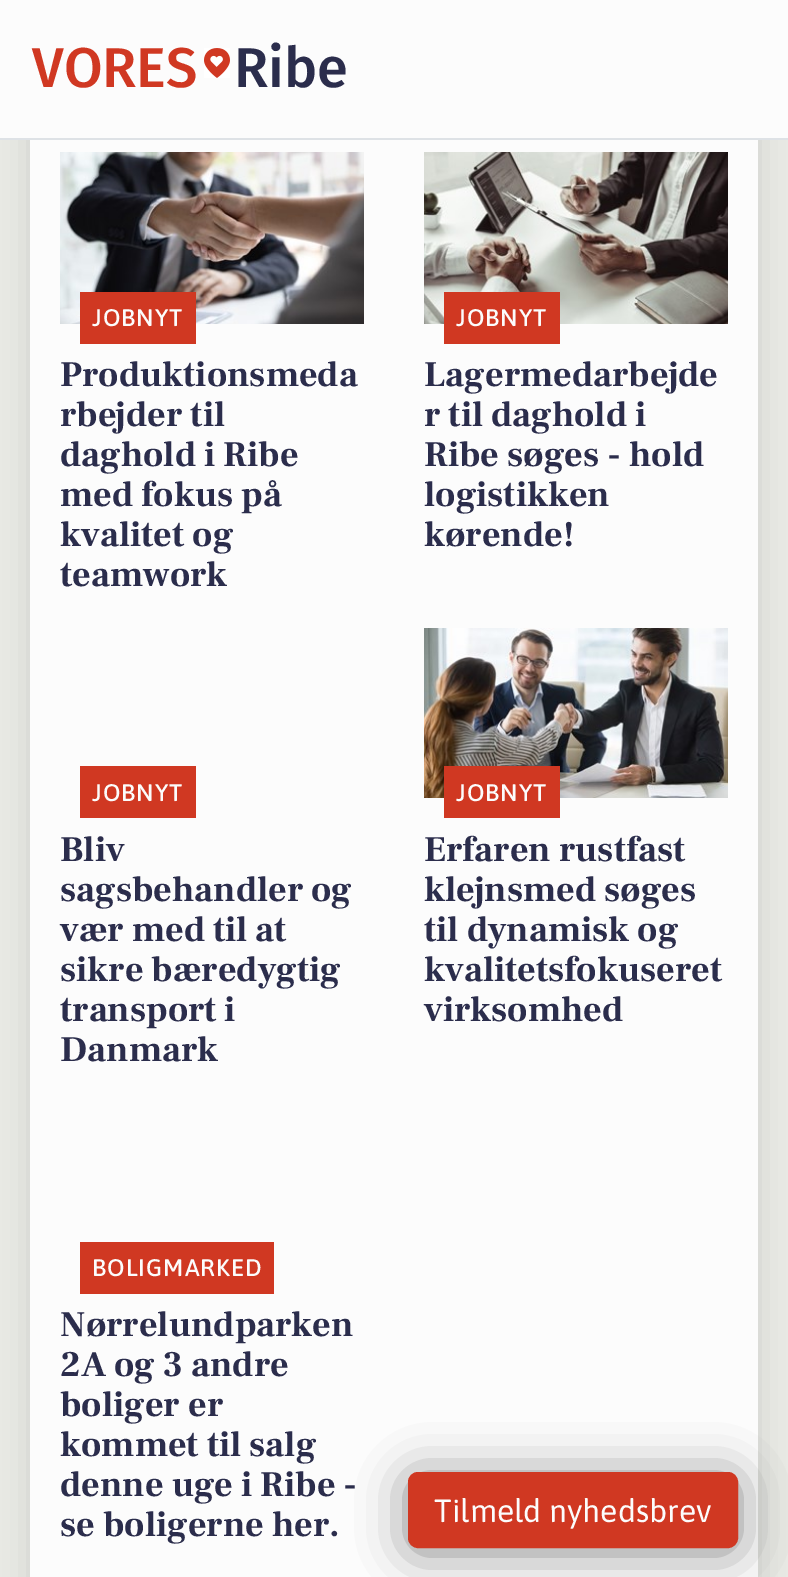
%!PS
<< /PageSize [788 1577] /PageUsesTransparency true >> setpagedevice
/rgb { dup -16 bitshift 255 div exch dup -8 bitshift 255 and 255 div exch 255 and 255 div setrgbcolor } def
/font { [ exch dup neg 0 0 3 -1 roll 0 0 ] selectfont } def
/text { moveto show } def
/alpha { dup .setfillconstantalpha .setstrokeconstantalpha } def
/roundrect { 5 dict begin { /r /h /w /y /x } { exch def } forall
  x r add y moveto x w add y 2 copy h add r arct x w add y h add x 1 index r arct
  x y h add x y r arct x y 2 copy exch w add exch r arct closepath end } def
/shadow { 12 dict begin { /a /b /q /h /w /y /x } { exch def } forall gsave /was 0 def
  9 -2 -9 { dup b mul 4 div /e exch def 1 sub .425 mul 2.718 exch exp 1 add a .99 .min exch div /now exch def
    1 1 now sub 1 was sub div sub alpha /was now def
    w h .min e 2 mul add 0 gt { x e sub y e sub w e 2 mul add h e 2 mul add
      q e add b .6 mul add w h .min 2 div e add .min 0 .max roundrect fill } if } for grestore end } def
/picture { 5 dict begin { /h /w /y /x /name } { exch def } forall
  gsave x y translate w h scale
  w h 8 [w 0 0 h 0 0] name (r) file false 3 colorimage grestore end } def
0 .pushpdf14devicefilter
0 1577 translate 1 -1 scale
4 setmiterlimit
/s1 { /FiraSans-Medium 56 font 16#D03822 rgb } def
/s2 { /FiraSans-Medium 56 font 16#2B2D4C rgb } def
/s3 { /FrankRuhlLibre-Bold 36 font 16#2B2D4C rgb } def
/s4 { /Asap-Regular 32 font 16#FCFCFC rgb } def
16#E9EAE5 rgb
0 0 788 1577 rectfill
16#2B2D4C rgb
30 -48 728 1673 0 16 0.15 shadow
16#FCFCFC rgb
0 0 788 138 rectfill
16#DEE2E6 rgb
0 138 788 2 rectfill
s1
(VORES) 32 87 text
(pic1.raw) 204 48 26 30 picture
s2
(Ribe) 234 87 text
16#FCFCFC rgb
30 140 728 1437 rectfill
(pic2.raw) 60 152 304 172 picture
16#D03822 rgb
80 292 116 52 rectfill
/Asap-Medium 24 font
16#FCFCFC rgb
92 326 moveto 1 0 (JOBNYT) ashow
s3
(Produktionsmeda) 60 386 text
(rbejder til) 60 426 text
(daghold i Ribe) 60 466 text
(med fokus på) 60 506 text
(kvalitet og) 60 546 text
(teamwork) 60 586 text
(pic3.raw) 424 152 304 172 picture
16#D03822 rgb
444 292 116 52 rectfill
/Asap-Medium 24 font
16#FCFCFC rgb
456 326 moveto 1 0 (JOBNYT) ashow
s3
(Lagermedarbejde) 424 386 text
(r til daghold i) 424 426 text
(Ribe søges - hold) 424 466 text
(logistikken) 424 506 text
(kørende!) 424 546 text
16#D03822 rgb
80 766 116 52 rectfill
/Asap-Medium 24 font
16#FCFCFC rgb
92 801 moveto 1 0 (JOBNYT) ashow
s3
(Bliv) 60 861 text
(sagsbehandler og) 60 901 text
(vær med til at) 60 941 text
(sikre bæredygtig) 60 981 text
(transport i) 60 1021 text
(Danmark) 60 1061 text
(pic4.raw) 424 628 304 170 picture
16#D03822 rgb
444 766 116 52 rectfill
/Asap-Medium 24 font
16#FCFCFC rgb
456 801 moveto 1 0 (JOBNYT) ashow
s3
(Erfaren rustfast) 424 861 text
(klejnsmed søges) 424 901 text
(til dynamisk og) 424 941 text
(kvalitetsfokuseret) 424 981 text
(virksomhed) 424 1021 text
16#D03822 rgb
80 1242 194 52 rectfill
/Asap-Medium 24 font
16#FCFCFC rgb
92 1276 moveto 1 0 (BOLIGMARKED) ashow
s3
(Nørrelundparken) 60 1336 text
(2A og 3 andre) 60 1376 text
(boliger er) 60 1416 text
(kommet til salg) 60 1456 text
(denne uge i Ribe -) 60 1496 text
(se boligerne her.) 60 1536 text
16#000000 rgb
408 1476 330 76 10 24 0.45 shadow
16#D03822 rgb
409 1473 328 74 9 roundrect gsave fill grestore
2 setlinewidth
stroke
s4
(Tilmeld nyhedsbrev) 434 1522 text
.poppdf14devicefilter showpage
